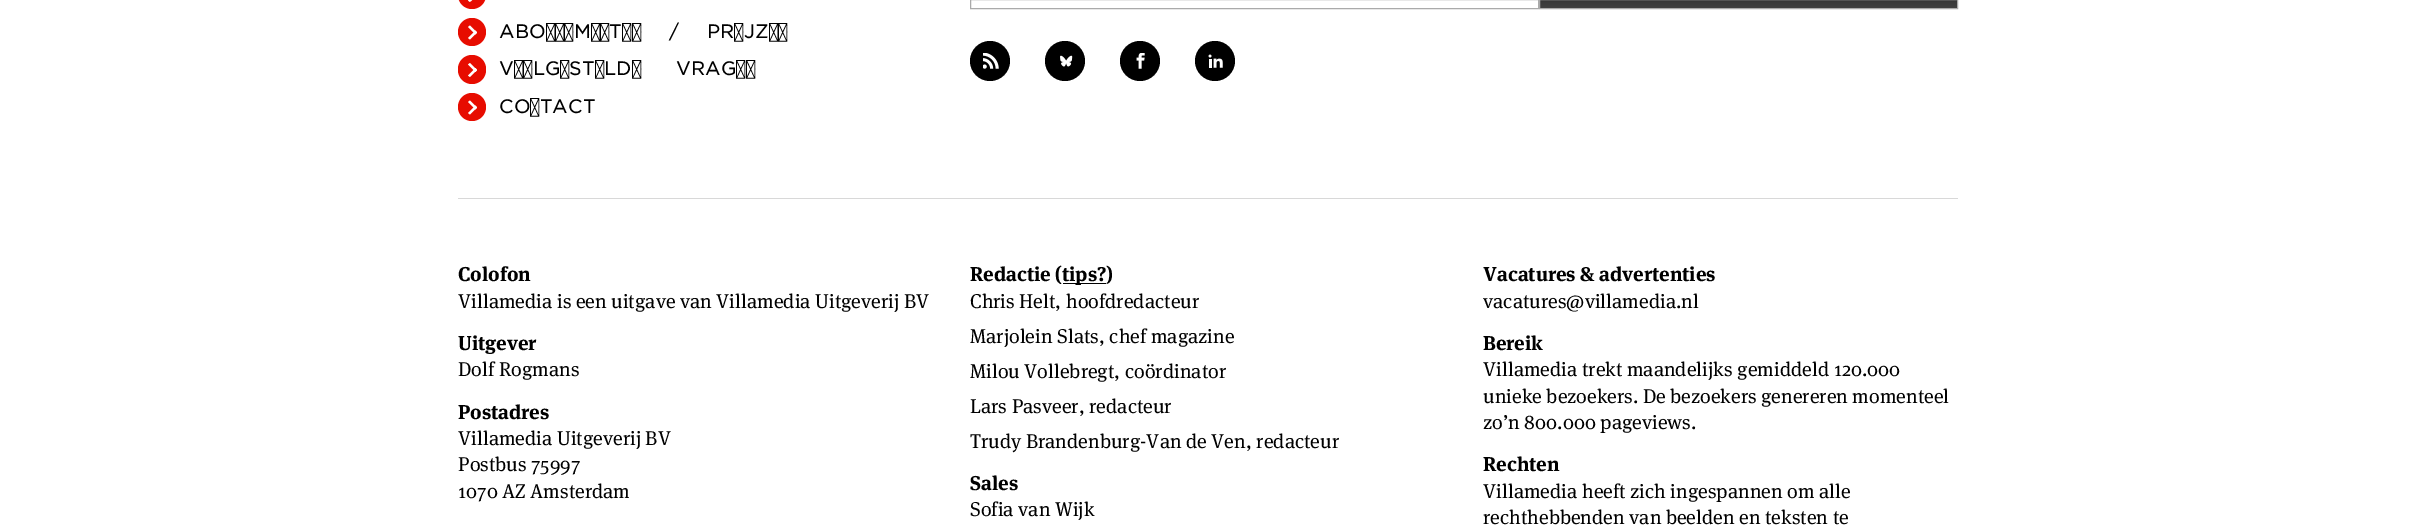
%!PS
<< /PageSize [2415 528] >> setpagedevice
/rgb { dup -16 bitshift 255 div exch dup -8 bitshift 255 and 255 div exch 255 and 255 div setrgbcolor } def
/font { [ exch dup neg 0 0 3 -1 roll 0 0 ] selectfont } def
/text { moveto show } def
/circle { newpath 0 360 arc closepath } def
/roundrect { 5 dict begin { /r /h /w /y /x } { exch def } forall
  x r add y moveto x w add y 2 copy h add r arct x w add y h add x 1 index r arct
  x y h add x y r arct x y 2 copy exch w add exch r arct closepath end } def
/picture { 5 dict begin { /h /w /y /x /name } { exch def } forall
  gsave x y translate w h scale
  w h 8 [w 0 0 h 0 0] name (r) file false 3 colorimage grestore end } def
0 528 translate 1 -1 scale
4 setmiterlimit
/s1 { /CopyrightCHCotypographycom-Light 18.75 font 16#000000 rgb } def
/s2 { /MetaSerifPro-Bold 20 font 16#000000 rgb } def
/s3 { /MetaSerifPro-Regular 20 font 16#000000 rgb } def
16#FFFFFF rgb
0 0 2415 528 rectfill
16#E70C00 rgb
458 -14 28 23 14 roundrect fill
16#FFFFFF rgb
468 0.5 moveto 475.5 -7 lineto 477 -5 lineto 470 2 lineto closepath fill
16#E70C00 rgb
472 32 14 circle fill
/CopyrightCHCotypographycom-Light 18.75 font
16#000000 rgb
499 38 moveto 22 0 32 (ABONNEMENTEN / PRIJZEN) widthshow
16#FFFFFF rgb
468 27 moveto 470 25.5 lineto 477 32.5 lineto 475.5 34.5 lineto closepath fill
468 38 moveto 475.5 30.5 lineto 477 32.5 lineto 470 39.5 lineto closepath fill
16#E70C00 rgb
458 55 28 29 14 roundrect fill
16#000000 rgb
499 75 moveto 29 0 32 (VEELGESTELDE VRAGEN) widthshow
16#FFFFFF rgb
468 64.5 moveto 470 63 lineto 477 70 lineto 475.5 72 lineto closepath fill
468 75.5 moveto 475.5 68 lineto 477 70 lineto 470 77 lineto closepath fill
16#E70C00 rgb
472 107 14 circle fill
s1
(CONTACT) 499 113 text
16#FFFFFF rgb
468 102 moveto 470 100.5 lineto 477 107.5 lineto 475.5 109.5 lineto closepath fill
468 113 moveto 475.5 105.5 lineto 477 107.5 lineto 470 114.5 lineto closepath fill
16#AAAAAA rgb
970.5 -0.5 568 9 rectstroke
gsave 1539 0 moveto 1958 0 lineto 1958 8 lineto 1539 8 lineto closepath clip newpath
<< /ShadingType 2 /ColorSpace /DeviceRGB /Coords [1748 -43 1748 7.5] /Extend [true true] /Function << /FunctionType 2 /Domain [0 1] /C0 [0 0 0] /C1 [0.251 0.251 0.251] /N 1 >> >> shfill grestore
1539.5 -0.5 418 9 rectstroke
16#000000 rgb
990 61 20 circle fill
(pic1.raw) 983 53 16 16 picture
1065 61 20 circle fill
(pic2.raw) 1060 55 13 12 picture
1140 61 20 circle fill
(pic3.raw) 1136 53 9 16 picture
1215 61 20 circle fill
(pic4.raw) 1208 54 15 14 picture
16#D8D8D8 rgb
458 198 1500 1 rectfill
s2
(Colofon) 458 281 text
s3
(Villamedia is een uitgave van Villamedia Uitgeverij BV) 458 308 text
s2
(Uitgever) 458 350 text
s3
(Dolf Rogmans) 458 376 text
s2
(Postadres) 458 419 text
s3
(Villamedia Uitgeverij BV) 458 445 text
(Postbus 75997) 458 471 text
(1070 AZ Amsterdam) 458 498 text
s2
(Redactie \() 970 281 text
1063 283 43 1 rectfill
(tips?\)) 1062 281 text
s3
(Chris Helt, hoofdredacteur) 970 308 text
(Marjolein Slats, chef magazine) 970 343 text
(Milou Vollebregt, coördinator) 970 378 text
(Lars Pasveer, redacteur) 970 413 text
(Trudy Brandenburg-Van de Ven, redacteur) 970 448 text
s2
(Sales) 970 490 text
s3
(Sofia van Wijk) 970 516 text
s2
(Vacatures & advertenties) 1483 281 text
s3
(vacatures@villamedia.nl) 1483 308 text
s2
(Bereik) 1483 350 text
s3
(Villamedia trekt maandelijks gemiddeld 120.000) 1483 376 text
(unieke bezoekers. De bezoekers genereren momenteel) 1483 403 text
(zo’n 800.000 pageviews.) 1483 429 text
s2
(Rechten) 1483 471 text
s3
(Villamedia heeft zich ingespannen om alle) 1483 498 text
(rechthebbenden van beelden en teksten te) 1483 524 text
showpage
